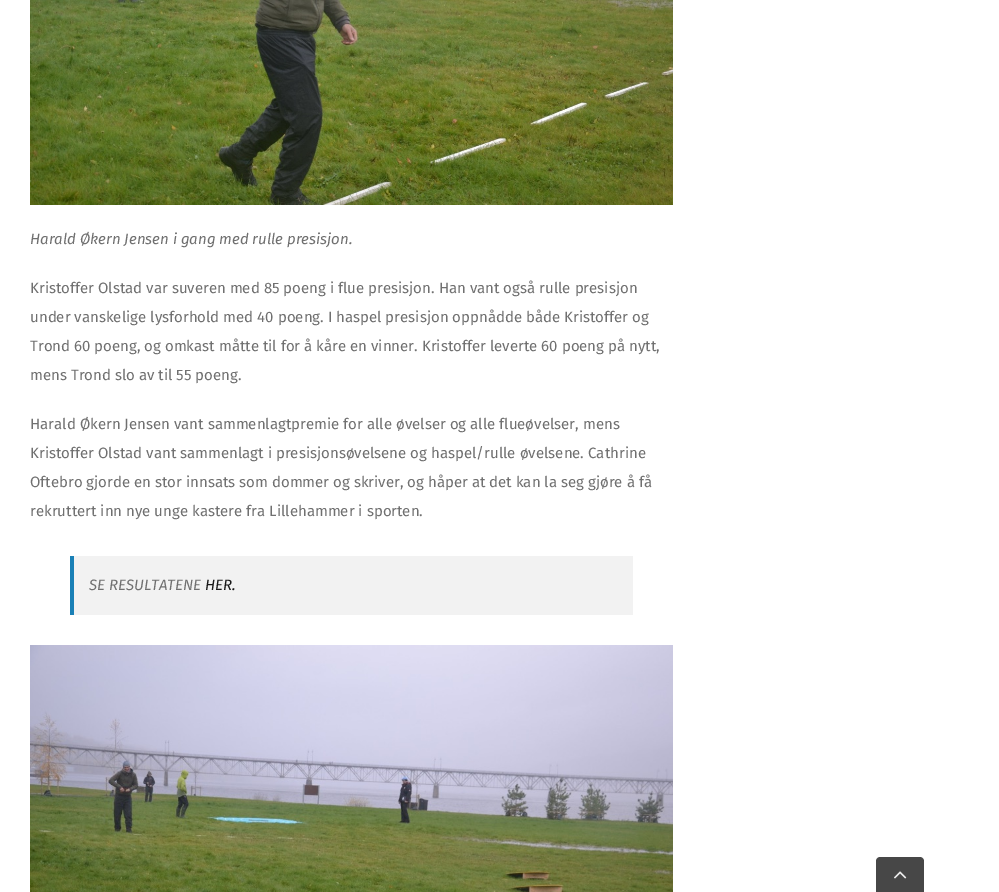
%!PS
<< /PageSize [999 892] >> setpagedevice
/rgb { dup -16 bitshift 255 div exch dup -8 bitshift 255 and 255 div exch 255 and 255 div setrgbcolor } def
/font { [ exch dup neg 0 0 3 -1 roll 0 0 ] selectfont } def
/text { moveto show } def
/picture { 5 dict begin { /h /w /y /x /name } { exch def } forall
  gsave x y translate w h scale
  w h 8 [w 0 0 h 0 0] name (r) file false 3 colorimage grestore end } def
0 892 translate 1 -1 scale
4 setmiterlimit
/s1 { /FiraSans-Italic 15 font 16#707070 rgb } def
/s2 { /FiraSans-Regular 15 font 16#707070 rgb } def
/s3 { /FiraSans-Italic 15 font 16#191919 rgb } def
16#FFFFFF rgb
0 0 999 892 rectfill
(pic1.raw) 30 0 643 205 picture
s1
(Harald Økern Jensen i gang med rulle presisjon.) 30 244 text
s2
(Kristoffer Olstad var suveren med 85 poeng i flue presisjon. Han vant også rulle presisjon) 30 293 text
(under vanskelige lysforhold med 40 poeng. I haspel presisjon oppnådde både Kristoffer og) 30 322 text
(Trond 60 poeng, og omkast måtte til for å kåre en vinner. Kristoffer leverte 60 poeng på nytt,) 30 351 text
(mens Trond slo av til 55 poeng.) 30 380 text
(Harald Økern Jensen vant sammenlagtpremie for alle øvelser og alle flueøvelser, mens) 30 429 text
(Kristoffer Olstad vant sammenlagt i presisjonsøvelsene og haspel/rulle øvelsene. Cathrine) 30 458 text
(Oftebro gjorde en stor innsats som dommer og skriver, og håper at det kan la seg gjøre å få) 30 487 text
(rekruttert inn nye unge kastere fra Lillehammer i sporten.) 30 516 text
16#F2F2F2 rgb
74 556 559 59 rectfill
16#1A80B6 rgb
70 556 4 59 rectfill
s1
(SE RESULTATENE) 89 590 text
s3
(HER.) 205 590 text
(pic2.raw) 30 645 643 247 picture
16#474747 rgb
880 857 moveto 920 857 lineto 922 857 924 859 924 861 curveto 924 892 lineto 876 892 lineto 876 861 lineto 876 859 878 857 880 857 curveto closepath fill
(pic3.raw) 894 871 13 8 picture
showpage
